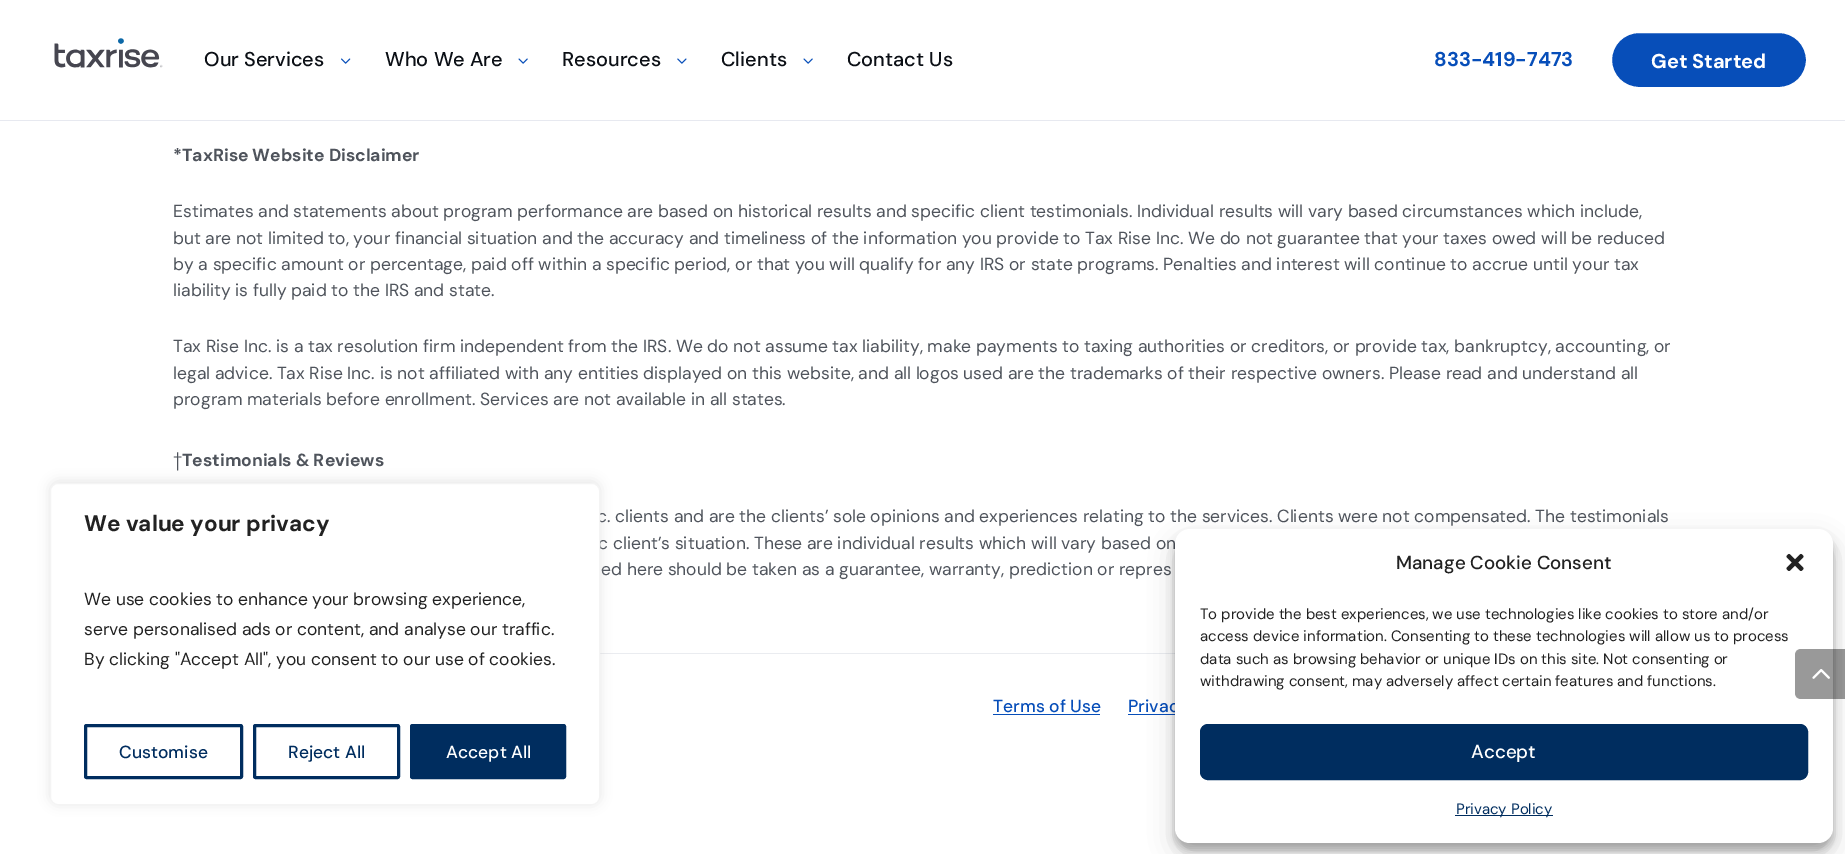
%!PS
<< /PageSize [1845 854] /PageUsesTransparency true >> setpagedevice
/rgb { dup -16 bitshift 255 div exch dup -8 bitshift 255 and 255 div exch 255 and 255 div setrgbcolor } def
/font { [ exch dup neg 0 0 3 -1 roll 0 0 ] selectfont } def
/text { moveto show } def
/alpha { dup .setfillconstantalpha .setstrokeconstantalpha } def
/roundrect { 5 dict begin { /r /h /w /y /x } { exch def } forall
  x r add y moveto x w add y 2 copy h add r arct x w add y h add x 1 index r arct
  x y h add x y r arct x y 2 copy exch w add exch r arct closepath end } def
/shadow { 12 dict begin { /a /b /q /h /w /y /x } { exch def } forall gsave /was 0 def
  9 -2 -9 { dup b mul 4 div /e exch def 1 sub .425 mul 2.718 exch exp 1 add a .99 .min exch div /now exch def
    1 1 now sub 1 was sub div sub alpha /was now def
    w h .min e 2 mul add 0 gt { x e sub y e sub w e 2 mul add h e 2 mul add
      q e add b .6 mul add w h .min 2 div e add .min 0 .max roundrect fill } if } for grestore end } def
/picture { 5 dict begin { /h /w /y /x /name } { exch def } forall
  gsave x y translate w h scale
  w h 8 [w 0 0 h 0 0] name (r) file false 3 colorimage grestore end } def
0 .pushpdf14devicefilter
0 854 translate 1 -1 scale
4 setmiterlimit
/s1 { /DMSans-Medium 20 font 16#0B0F15 rgb } def
/s2 { /DMSans-Bold 20 font 16#074EB9 rgb } def
/s3 { /DMSans-Bold 20 font 16#FFFFFF rgb } def
/s4 { /DMSans-Bold 17.5 font 16#4F545C rgb } def
/s5 { /DMSans-Regular 17.5 font 16#4F545C rgb } def
/s6 { /DMSans-Medium 17.5 font 16#074EB9 rgb } def
/s7 { /DMSans-Bold 22.5 font 16#222222 rgb } def
/s8 { /DMSans-Regular 17.5 font 16#222222 rgb } def
/s9 { /DMSans-Medium 17.5 font 16#002D5F rgb } def
/s10 { /DMSans-Medium 17.5 font 16#FFFFFF rgb } def
/s11 { /DMSans-Medium 18.75 font 16#222222 rgb } def
/s12 { /DMSans-Regular 15 font 16#222222 rgb } def
/s13 { /DMSans-Medium 18.75 font 16#FFFFFF rgb } def
/s14 { /DMSans-Regular 15 font 16#002D5F rgb } def
16#FFFFFF rgb
0 0 1845 854 rectfill
16#E7E9F0 rgb
0 120 1845 1 rectfill
(pic1.raw) 54 38 109 30 picture
s1
(Our Services) 204 66 text
(pic2.raw) 341 58 10 6 picture
(Who We Are) 385 66 text
(pic3.raw) 518 58 10 6 picture
(Resources) 562 66 text
(pic4.raw) 677 58 10 6 picture
(Clients) 721 66 text
(pic3.raw) 803 58 10 6 picture
(Contact Us) 847 66 text
s2
(833-419-7473) 1434 66 text
1610.5 31.5 197 57 28.5 roundrect gsave fill grestore
16#FFFFFF rgb
3 setlinewidth
stroke
(Get Started) 1651 68 text
s4
(*TaxRise Website Disclaimer) 173 161 text
s5
(Estimates and statements about program performance are based on historical results and specific client testimonials. Individual results will vary based circumstances which include,) 173 217 text
(but are not limited to, your financial situation and the accuracy and timeliness of the information you provide to Tax Rise Inc. We do not guarantee that your taxes owed will be reduced) 173 244 text
(by a specific amount or percentage, paid off within a specific period, or that you will qualify for any IRS or state programs. Penalties and interest will continue to accrue until your tax) 173 270 text
(liability is fully paid to the IRS and state.) 173 296 text
(Tax Rise Inc. is a tax resolution firm independent from the IRS. We do not assume tax liability, make payments to taxing authorities or creditors, or provide tax, bankruptcy, accounting, or) 173 352 text
(legal advice. Tax Rise Inc. is not affiliated with any entities displayed on this website, and all logos used are the trademarks of their respective owners. Please read and understand all) 173 379 text
(program materials before enrollment. Services are not available in all states.) 173 405 text
(†) 173 466 text
s4
(Testimonials & Reviews) 182 466 text
s5
(c. clients and are the clients’ sole opinions and experiences relating to the services. Clients were not compensated. The testimonials) 597 522 text
(c client’s situation. These are individual results which will vary based on) 598 549 text
(ed here should be taken as a guarantee, warranty, prediction or repres) 601 575 text
16#EAECF0 rgb
600 653 575 1 rectfill
s6
(Terms of Use) 993 712 text
993 714 107 1 rectfill
(Privac) 1128 712 text
1128 714 47 1 rectfill
16#ACABAB rgb
50 481 550 323 8 6 0.3 shadow
16#FFFFFF rgb
50.5 483.5 549 321 7.5 roundrect gsave fill grestore
16#F4F4F4 rgb
1 setlinewidth
stroke
s7
(We value your privacy) 84 531 text
s8
(We use cookies to enhance your browsing experience,) 84 605 text
(serve personalised ads or content, and analyse our traffic.) 84 635 text
(By clicking "Accept All", you consent to our use of cookies.) 84 665 text
16#002D5F rgb
3 setlinewidth
85.5 725.5 156 52 1 roundrect stroke
s9
(Customise) 119 758 text
254.5 725.5 144 52 1 roundrect stroke
(Reject All) 288 758 text
411.5 725.5 153 52 1 roundrect gsave fill grestore
stroke
s10
(Accept All) 446 758 text
16#000000 rgb
1175 536 658 314 15 4 0.23 shadow
1175 541 658 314 15 12.5 0.19 shadow
16#FFFFFF rgb
1175 529 658 314 15 roundrect fill
s11
(Manage Cookie Consent) 1396 569 text
(pic5.raw) 1786 553 18 18 picture
s12
(To provide the best experiences, we use technologies like cookies to store and/or) 1200 619 text
(access device information. Consenting to these technologies will allow us to process) 1200 641 text
(data such as browsing behavior or unique IDs on this site. Not consenting or) 1200 664 text
(withdrawing consent, may adversely affect certain features and functions.) 1200 686 text
16#002D5F rgb
1200.5 724.5 607 55 7.5 roundrect gsave fill grestore
1 setlinewidth
stroke
s13
(Accept) 1471 758 text
16#002D5F rgb
1455 815 98 1 rectfill
s14
(Privacy Policy) 1456 814 text
0.4 alpha
16#000000 rgb
1801 649 moveto 1845 649 lineto 1845 699 lineto 1801 699 lineto 1797.5 699 1795 696.5 1795 693 curveto 1795 655 lineto 1795 651.5 1797.5 649 1801 649 curveto closepath fill
1 alpha
(pic6.raw) 1812 669 18 10 picture
.poppdf14devicefilter showpage
